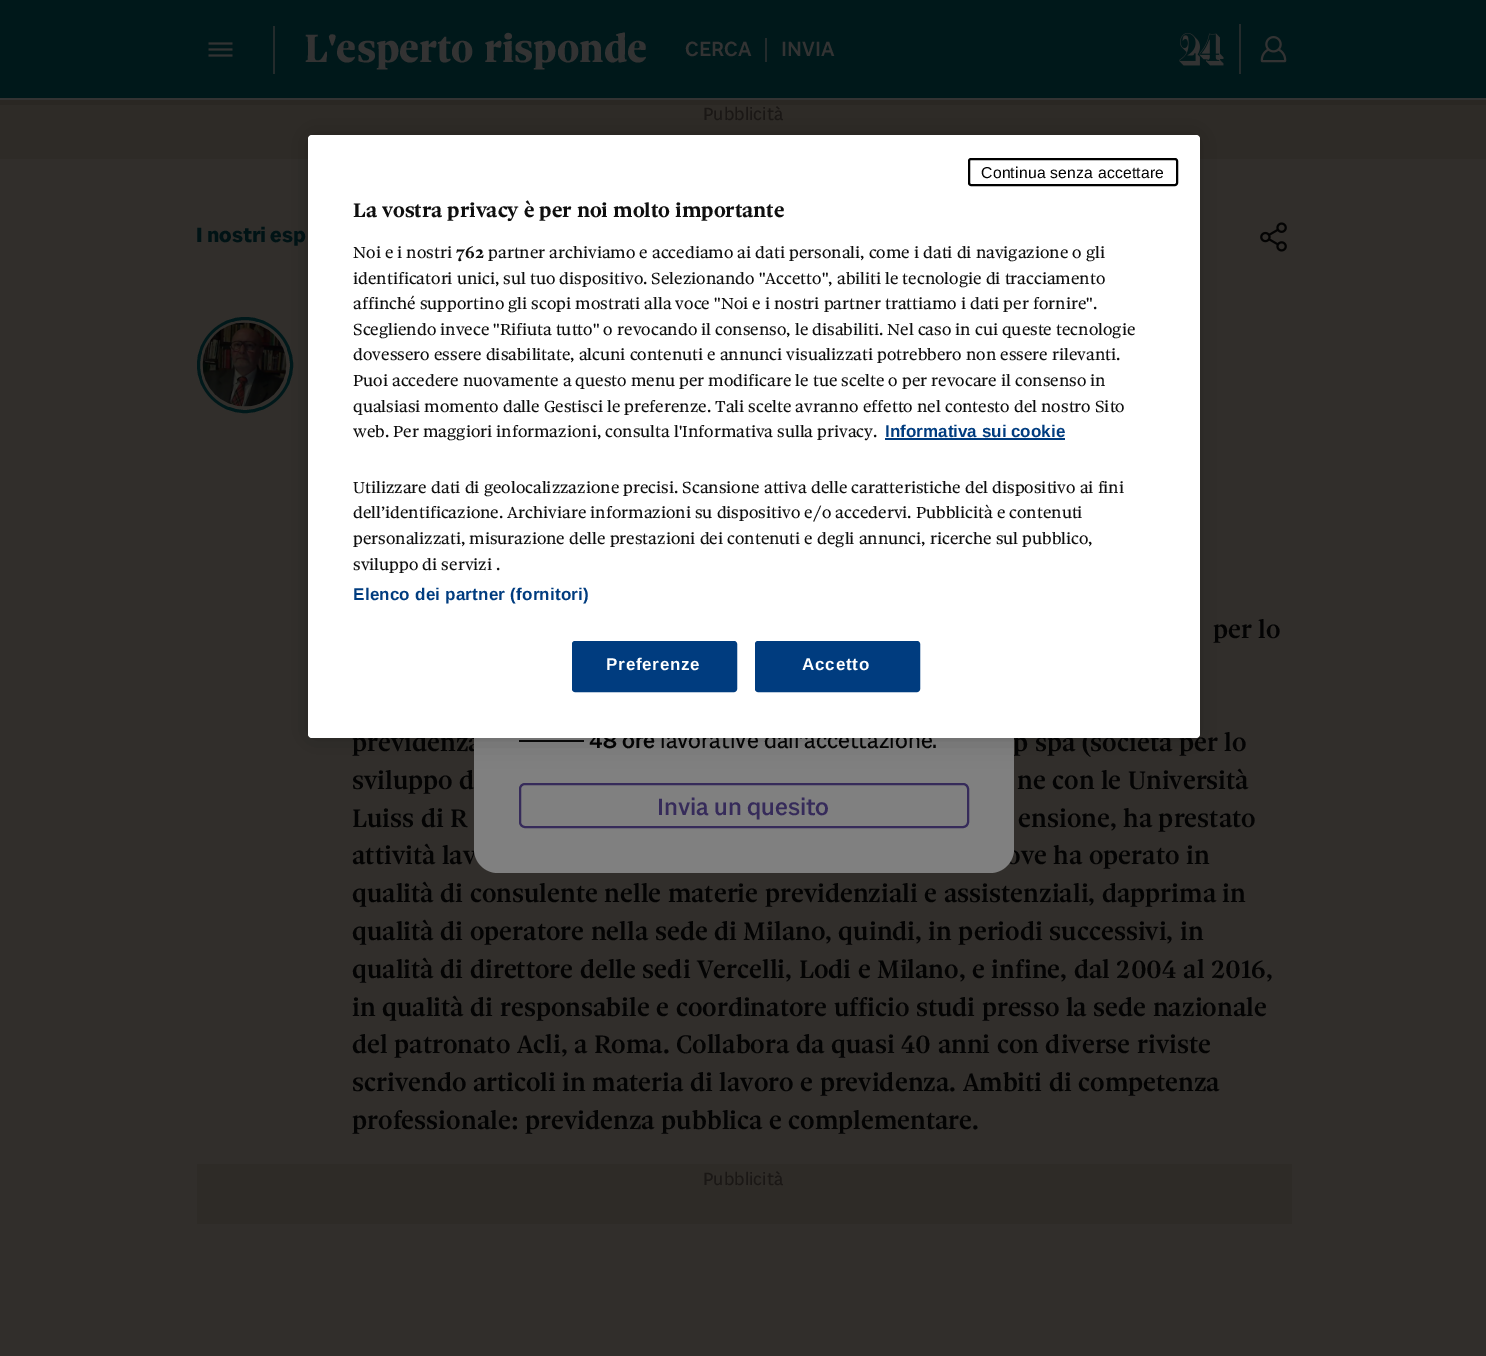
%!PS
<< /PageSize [1486 1356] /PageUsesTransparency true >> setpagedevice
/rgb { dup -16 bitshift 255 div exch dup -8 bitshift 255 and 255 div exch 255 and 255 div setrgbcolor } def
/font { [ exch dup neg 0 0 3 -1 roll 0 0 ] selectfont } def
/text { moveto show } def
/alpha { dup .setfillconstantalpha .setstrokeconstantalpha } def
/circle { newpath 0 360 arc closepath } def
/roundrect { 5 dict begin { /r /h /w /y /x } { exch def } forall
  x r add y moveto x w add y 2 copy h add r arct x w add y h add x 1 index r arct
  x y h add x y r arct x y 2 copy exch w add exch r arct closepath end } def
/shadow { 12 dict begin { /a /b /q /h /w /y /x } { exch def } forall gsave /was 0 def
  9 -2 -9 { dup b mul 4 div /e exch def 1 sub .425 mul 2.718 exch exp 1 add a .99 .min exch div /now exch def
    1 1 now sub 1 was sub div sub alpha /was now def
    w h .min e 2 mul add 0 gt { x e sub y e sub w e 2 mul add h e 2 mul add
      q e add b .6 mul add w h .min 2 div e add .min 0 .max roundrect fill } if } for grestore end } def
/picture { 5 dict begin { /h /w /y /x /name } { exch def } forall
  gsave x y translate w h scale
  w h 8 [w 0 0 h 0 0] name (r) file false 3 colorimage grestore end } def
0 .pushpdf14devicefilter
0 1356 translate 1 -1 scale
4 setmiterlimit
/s1 { /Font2-Bold 42 font 16#333333 rgb } def
/s2 { /Font2-Medium 21 font 16#333333 rgb } def
/s3 { /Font-Regular 18 font 16#1A1715 rgb } def
/s4 { /Font-Bold 21 font 16#001315 rgb } def
/s5 { /Font-Medium 27 font 16#030303 rgb } def
/s6 { /Font2-Medium 22.5 font 16#030303 rgb } def
/s7 { /Font-Regular 22.5 font 16#030303 rgb } def
/s8 { /Font2-Medium 24 font 16#362B5A rgb } def
/s9 { /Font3-Bold 21 font 16#0F0F0F rgb } def
/s10 { /Font2-Regular 17.05 font 16#0F0F0F rgb } def
/s11 { /Font3-Bold 17.05 font 16#0F0F0F rgb } def
/s12 { /LiberationSans-Bold 17.05 font 16#003C7F rgb } def
16#312E2B rgb
0 0 1486 1356 rectfill
16#2A2723 rgb
0 99 moveto 0 105 lineto 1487 105 lineto 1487 6 lineto 1486 6 lineto 1486 99 lineto closepath fill
16#00181A rgb
0 0 1486 98 rectfill
16#333333 rgb
0 98 1486 2 rectfill
(pic1.raw) 208 42 25 15 picture
16#242B2C rgb
273 26 2 48 rectfill
s1
(L'esperto risponde) 304 62 text
s2
(CERCA) 685 56 text
16#242B2C rgb
765 38 2 24 rectfill
s2
(INVIA) 781 56 text
(pic2.raw) 1179 33 45 33 picture
16#242B2C rgb
1239 24 2 50 rectfill
(pic3.raw) 1260 36 27 27 picture
16#2E2B27 rgb
0 105 1486 54 rectfill
s3
(Pubblicità) 703 120 text
s4
(I nostri esp) 196 242 text
(pic4.raw) 1260 222 27 30 picture
16#00181A rgb
3 setlinewidth
245 365 46.5 circle stroke
(pic5.raw) 202 322 85 85 picture
s5
(per lo) 1213 638 text
(previdenza) 352 751 text
(p spa \(società per lo) 1013 751 text
(sviluppo d) 352 789 text
(ne con le Università) 1017 789 text
(Luiss di R) 352 827 text
(ensione, ha prestato) 1018 827 text
(attività lav) 352 864 text
(ove ha operato in) 1006 864 text
(qualità di consulente nelle materie previdenziali e assistenziali, dapprima in) 352 902 text
(qualità di operatore nella sede di Milano, quindi, in periodi successivi, in) 352 940 text
(qualità di direttore delle sedi Vercelli, Lodi e Milano, e infine, dal 2004 al 2016,) 352 978 text
(in qualità di responsabile e coordinatore ufficio studi presso la sede nazionale) 352 1016 text
(del patronato Acli, a Roma. Collabora da quasi 40 anni con diverse riviste) 352 1053 text
(scrivendo articoli in materia di lavoro e previdenza. Ambiti di competenza) 352 1091 text
(professionale: previdenza pubblica e complementare.) 352 1129 text
16#2E2B27 rgb
197 1164 1095 60 rectfill
s3
(Pubblicità) 703 1185 text
16#808080 rgb
474 483 540 390 24 roundrect fill
16#080808 rgb
519 740 65 2 rectfill
s6
(48 ore) 589 748 text
s7
(lavorative dall’accettazione.) 660 748 text
16#362B5A rgb
2 setlinewidth
520 784 448 43 5 roundrect stroke
s8
(Invia un quesito) 657 815 text
16#000000 rgb
308 135 892 603 4 13.5 0.2 shadow
16#FFFFFF rgb
308 135 892 603 4 roundrect fill
16#000000 rgb
969 159 208 26 2 roundrect stroke
/LiberationSans-Regular 15.75 font
16#030303 rgb
981 178 moveto 0.2 0 (Continua senza accettare) ashow
s9
(La vostra privacy è per noi molto importante) 353 217 text
s10
(Noi e i nostri) 353 258 text
s11
(762) 456 258 text
s10
(partner archiviamo e accediamo ai dati personali, come i dati di navigazione o gli) 488 258 text
(identificatori unici, sul tuo dispositivo. Selezionando "Accetto", abiliti le tecnologie di tracciamento) 353 284 text
(affinché supportino gli scopi mostrati alla voce "Noi e i nostri partner trattiamo i dati per fornire".) 353 309 text
(Scegliendo invece "Rifiuta tutto" o revocando il consenso, le disabiliti. Nel caso in cui queste tecnologie) 353 335 text
(dovessero essere disabilitate, alcuni contenuti e annunci visualizzati potrebbero non essere rilevanti.) 353 360 text
(Puoi accedere nuovamente a questo menu per modificare le tue scelte o per revocare il consenso in) 353 386 text
(qualsiasi momento dalle Gestisci le preferenze. Tali scelte avranno effetto nel contesto del nostro Sito) 353 412 text
(web. Per maggiori informazioni, consulta l'Informativa sulla privacy.) 353 437 text
s12
(Informativa sui cookie) 885 437 text
885 438 180 2 rectfill
s10
(Utilizzare dati di geolocalizzazione precisi. Scansione attiva delle caratteristiche del dispositivo ai fini) 353 493 text
(dell’identificazione. Archiviare informazioni su dispositivo e/o accedervi. Pubblicità e contenuti) 353 518 text
(personalizzati, misurazione delle prestazioni dei contenuti e degli annunci, ricerche sul pubblico,) 353 544 text
(sviluppo di servizi .) 353 570 text
/LiberationSans-Bold 17.05 font
16#003C7F rgb
353 600 moveto 0.2 0 (Elenco dei partner \(fornitori\)) ashow
573 642 163 49 2 roundrect gsave fill grestore
stroke
16#FFFFFF rgb
606 670 moveto 0.75 0 (Preferenze) ashow
16#003C7F rgb
756 642 163 49 2 roundrect gsave fill grestore
stroke
16#FFFFFF rgb
802 670 moveto 0.75 0 (Accetto) ashow
.poppdf14devicefilter showpage
